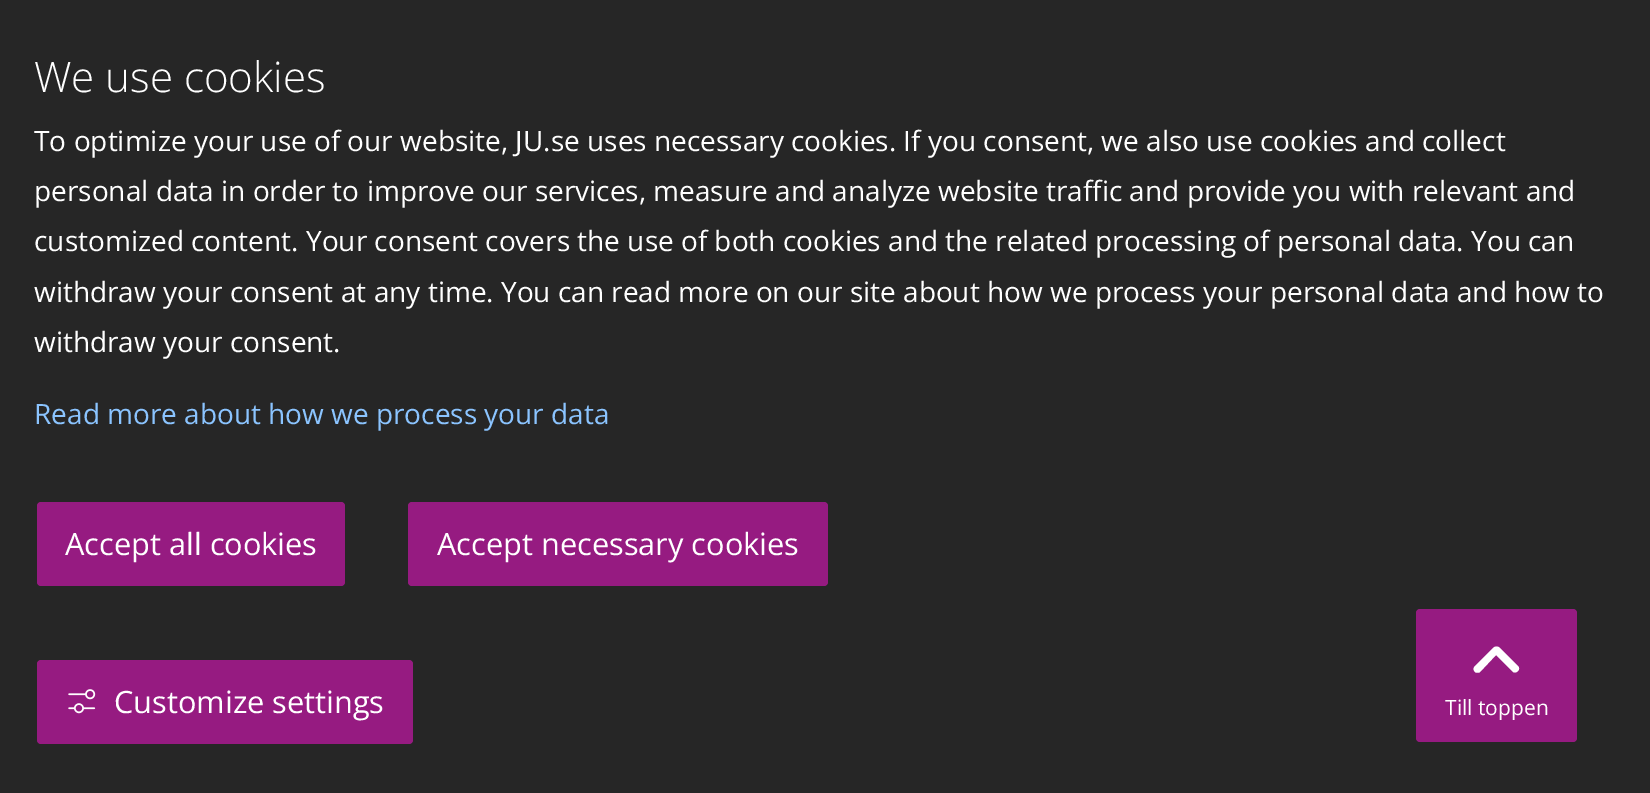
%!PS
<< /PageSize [1650 793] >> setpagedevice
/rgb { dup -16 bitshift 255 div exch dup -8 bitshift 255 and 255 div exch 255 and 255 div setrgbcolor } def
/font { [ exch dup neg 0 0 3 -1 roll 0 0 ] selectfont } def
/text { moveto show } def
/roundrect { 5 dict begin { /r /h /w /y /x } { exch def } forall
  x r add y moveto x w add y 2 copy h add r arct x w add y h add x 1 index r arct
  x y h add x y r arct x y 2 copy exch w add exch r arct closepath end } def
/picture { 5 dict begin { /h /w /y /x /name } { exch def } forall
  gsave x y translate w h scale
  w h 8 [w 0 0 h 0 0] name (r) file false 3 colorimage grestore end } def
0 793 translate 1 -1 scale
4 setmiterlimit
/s1 { /OpenSans-Light 42 font 16#FFFFFF rgb } def
/s2 { /OpenSans-Regular 28 font 16#FFFFFF rgb } def
/s3 { /OpenSans-Regular 28 font 16#8BC4FF rgb } def
/s4 { /OpenSans-Regular 30.75 font 16#FFFFFF rgb } def
/s5 { /OpenSans-Regular 21 font 16#FFFFFF rgb } def
16#262626 rgb
0 0 1650 793 rectfill
s1
(We use cookies) 34 92 text
s2
(To optimize your use of our website, JU.se uses necessary cookies. If you consent, we also use cookies and collect) 34 151 text
(personal data in order to improve our services, measure and analyze website traffic and provide you with relevant and) 34 201 text
(customized content. Your consent covers the use of both cookies and the related processing of personal data. You can) 34 251 text
(withdraw your consent at any time. You can read more on our site about how we process your personal data and how to) 34 302 text
(withdraw your consent.) 34 352 text
s3
(Read more about how we process your data) 34 424 text
16#961B81 rgb
37 502 308 84 4 roundrect fill
s4
(Accept all cookies) 65 555 text
16#961B81 rgb
408 502 420 84 4 roundrect fill
s4
(Accept necessary cookies) 437 555 text
16#961B81 rgb
37 660 376 84 4 roundrect fill
(pic1.raw) 68 689 28 25 picture
s4
(Customize settings) 114 713 text
16#961B81 rgb
1416 609 161 133 4 roundrect fill
16#FFFFFF rgb
1518 666 moveto 1500 648 lineto 1498 646 1495 646 1493 648 curveto 1475 666 lineto 1473 668 1473 670 1475 672 curveto 1476 673 1479 673 1480 672 curveto 1496 655 lineto 1513 672 lineto 1517 674 1521 669 1518 666 curveto closepath fill
s5
(Till toppen) 1445 715 text
showpage
